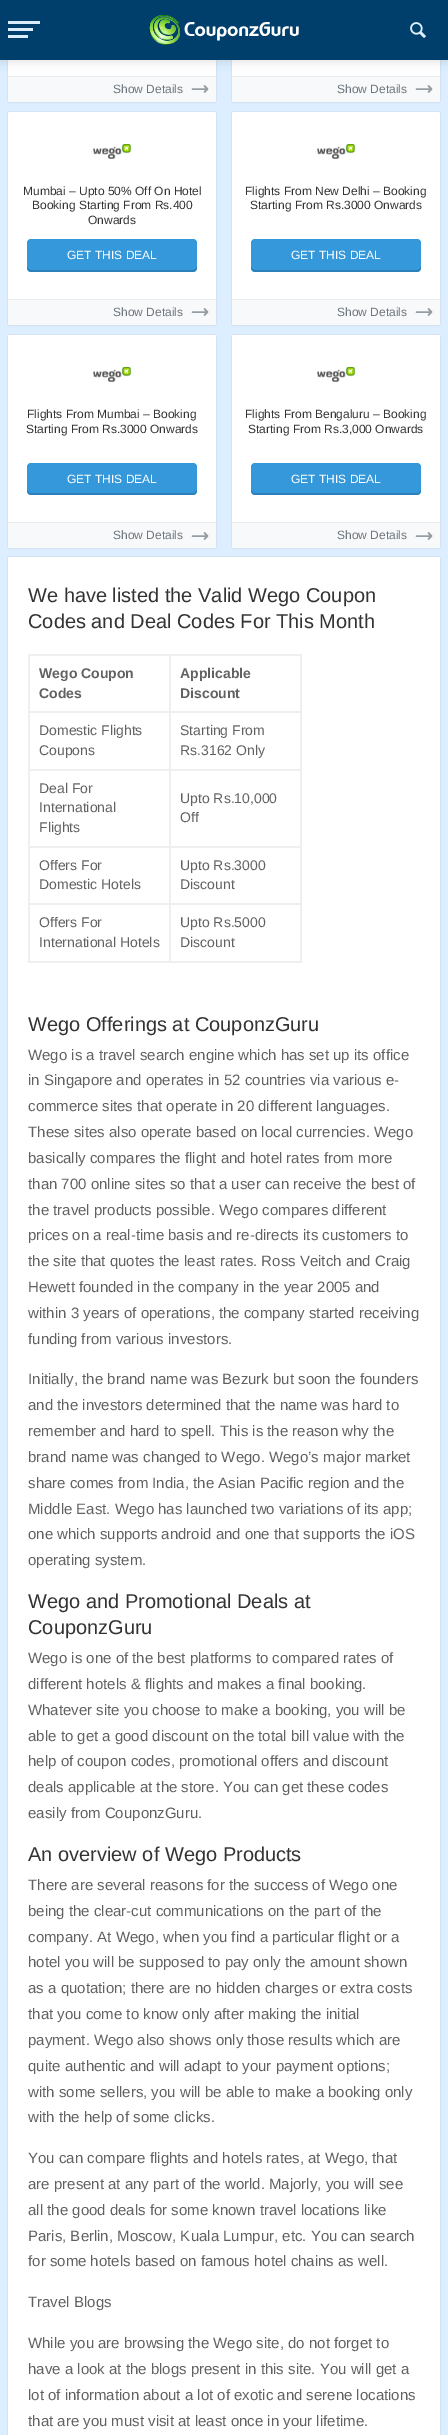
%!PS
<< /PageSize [448 2435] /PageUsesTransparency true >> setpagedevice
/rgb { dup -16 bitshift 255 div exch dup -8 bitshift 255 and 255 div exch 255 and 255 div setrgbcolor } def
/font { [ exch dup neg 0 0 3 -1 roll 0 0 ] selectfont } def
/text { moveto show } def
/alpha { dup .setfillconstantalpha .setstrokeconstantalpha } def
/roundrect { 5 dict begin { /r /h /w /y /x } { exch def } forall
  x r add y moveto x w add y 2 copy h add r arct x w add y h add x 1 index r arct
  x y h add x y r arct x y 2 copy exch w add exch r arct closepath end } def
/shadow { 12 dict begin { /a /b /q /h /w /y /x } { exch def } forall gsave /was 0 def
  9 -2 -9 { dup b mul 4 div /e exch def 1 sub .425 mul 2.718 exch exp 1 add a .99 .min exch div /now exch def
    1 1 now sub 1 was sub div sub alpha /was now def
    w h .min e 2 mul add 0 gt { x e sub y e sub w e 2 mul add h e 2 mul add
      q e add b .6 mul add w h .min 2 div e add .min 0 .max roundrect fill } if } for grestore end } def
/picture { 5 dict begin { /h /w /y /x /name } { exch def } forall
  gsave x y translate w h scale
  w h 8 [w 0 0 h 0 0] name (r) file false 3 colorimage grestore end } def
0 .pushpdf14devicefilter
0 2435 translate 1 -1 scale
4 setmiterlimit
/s1 { /LiberationSans-Regular 12 font 16#6C757D rgb } def
/s2 { /LiberationSans-Regular 12 font 16#333333 rgb } def
/s3 { /LiberationSans-Regular 12 font 16#FFFFFF rgb } def
/s4 { /LiberationSans-Regular 20 font 16#333333 rgb } def
/s5 { /LiberationSans-Bold 14 font 16#626161 rgb } def
/s6 { /LiberationSans-Regular 14 font 16#626161 rgb } def
/s7 { /LiberationSans-Regular 15 font 16#626161 rgb } def
16#DCEEFF rgb
0 0 448 2435 rectfill
16#D4E4F2 rgb
7.5 -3.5 209 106 2.5 roundrect stroke
16#FFFFFF rgb
8 -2 208 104 2 roundrect fill
16#F8F9FA rgb
8 76 moveto 216 76 lineto 216 100 lineto 216 101 215 102 214 102 curveto 10 102 lineto 9 102 8 101 8 100 curveto closepath fill
16#E9ECEF rgb
8 76 208 1 rectfill
16#D4E4F2 rgb
231.5 -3.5 209 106 2.5 roundrect stroke
16#FFFFFF rgb
232 -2 208 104 2 roundrect fill
16#F8F9FA rgb
232 76 moveto 440 76 lineto 440 100 lineto 440 101 439 102 438 102 curveto 234 102 lineto 233 102 232 101 232 100 curveto closepath fill
16#E9ECEF rgb
232 76 208 1 rectfill
16#000000 rgb
0 2 448 60 0 5 0.11 shadow
16#003E6B rgb
0 0 448 60 rectfill
16#DCEEFB rgb
8 28 25 3 rectfill
8 21 32 3 rectfill
8 35 20 3 rectfill
(pic1.raw) 149 15 150 30 picture
(pic2.raw) 410 22 16 16 picture
s1
(Show Details) 113 93 text
16#969DA3 rgb
1.5 setlinewidth
1 setlinecap
1 setlinejoin
204.5 86 moveto 207.5 89 lineto 204.5 92 lineto 192.5 89 moveto 207.5 89 lineto stroke
s1
(Show Details) 337 93 text
16#969DA3 rgb
428.5 86 moveto 431.5 89 lineto 428.5 92 lineto 416.5 89 moveto 431.5 89 lineto stroke
16#D4E4F2 rgb
1 setlinewidth
0 setlinecap
0 setlinejoin
7.5 111.5 209 214 2.5 roundrect stroke
16#FFFFFF rgb
8 112 208 213 2 roundrect fill
(pic3.raw) 92 144 40 15 picture
s2
(Mumbai – Upto 50% Off On Hotel) 23 195 text
(Booking Starting From Rs.400) 32 209 text
(Onwards) 88 224 text
16#3498DB rgb
27 239 170 33 4 roundrect fill
0.15 alpha
16#000000 rgb
27 266 moveto 27 268 lineto 27 270 29 272 31 272 curveto 193 272 lineto 195 272 197 270 197 268 curveto 197 266 lineto 197 268 195 270 193 270 curveto 31 270 lineto 29 270 27 268 27 266 curveto closepath fill
1 alpha
s3
(GET THIS DEAL) 67 259 text
16#F8F9FA rgb
8 299 moveto 216 299 lineto 216 323 lineto 216 324 215 325 214 325 curveto 10 325 lineto 9 325 8 324 8 323 curveto closepath fill
16#E9ECEF rgb
8 299 208 1 rectfill
s1
(Show Details) 113 316 text
16#969DA3 rgb
1.5 setlinewidth
1 setlinecap
1 setlinejoin
204.5 309 moveto 207.5 312 lineto 204.5 315 lineto 192.5 312 moveto 207.5 312 lineto stroke
16#D4E4F2 rgb
1 setlinewidth
0 setlinecap
0 setlinejoin
231.5 111.5 209 214 2.5 roundrect stroke
16#FFFFFF rgb
232 112 208 213 2 roundrect fill
(pic3.raw) 316 144 40 15 picture
s2
(Flights From New Delhi – Booking) 245 195 text
(Starting From Rs.3000 Onwards) 250 209 text
16#3498DB rgb
251 239 170 33 4 roundrect fill
0.15 alpha
16#000000 rgb
251 266 moveto 251 268 lineto 251 270 253 272 255 272 curveto 417 272 lineto 419 272 421 270 421 268 curveto 421 266 lineto 421 268 419 270 417 270 curveto 255 270 lineto 253 270 251 268 251 266 curveto closepath fill
1 alpha
s3
(GET THIS DEAL) 291 259 text
16#F8F9FA rgb
232 299 moveto 440 299 lineto 440 323 lineto 440 324 439 325 438 325 curveto 234 325 lineto 233 325 232 324 232 323 curveto closepath fill
16#E9ECEF rgb
232 299 208 1 rectfill
s1
(Show Details) 337 316 text
16#969DA3 rgb
1.5 setlinewidth
1 setlinecap
1 setlinejoin
428.5 309 moveto 431.5 312 lineto 428.5 315 lineto 416.5 312 moveto 431.5 312 lineto stroke
16#D4E4F2 rgb
1 setlinewidth
0 setlinecap
0 setlinejoin
7.5 334.5 209 214 2.5 roundrect stroke
16#FFFFFF rgb
8 335 208 213 2 roundrect fill
(pic3.raw) 92 367 40 15 picture
s2
(Flights From Mumbai – Booking) 27 418 text
(Starting From Rs.3000 Onwards) 26 433 text
16#3498DB rgb
27 463 170 32 4 roundrect fill
0.15 alpha
16#000000 rgb
27 489 moveto 27 491 lineto 27 493 29 495 31 495 curveto 193 495 lineto 195 495 197 493 197 491 curveto 197 489 lineto 197 491 195 493 193 493 curveto 31 493 lineto 29 493 27 491 27 489 curveto closepath fill
1 alpha
s3
(GET THIS DEAL) 67 483 text
16#F8F9FA rgb
8 522 moveto 216 522 lineto 216 546 lineto 216 547 215 548 214 548 curveto 10 548 lineto 9 548 8 547 8 546 curveto closepath fill
16#E9ECEF rgb
8 522 208 1 rectfill
s1
(Show Details) 113 539 text
16#969DA3 rgb
1.5 setlinewidth
1 setlinecap
1 setlinejoin
204.5 533 moveto 207.5 536 lineto 204.5 539 lineto 192.5 536 moveto 207.5 536 lineto stroke
16#D4E4F2 rgb
1 setlinewidth
0 setlinecap
0 setlinejoin
231.5 334.5 209 214 2.5 roundrect stroke
16#FFFFFF rgb
232 335 208 213 2 roundrect fill
(pic3.raw) 316 367 40 15 picture
s2
(Flights From Bengaluru – Booking) 245 418 text
(Starting From Rs.3,000 Onwards) 248 433 text
16#3498DB rgb
251 463 170 32 4 roundrect fill
0.15 alpha
16#000000 rgb
251 489 moveto 251 491 lineto 251 493 253 495 255 495 curveto 417 495 lineto 419 495 421 493 421 491 curveto 421 489 lineto 421 491 419 493 417 493 curveto 255 493 lineto 253 493 251 491 251 489 curveto closepath fill
1 alpha
s3
(GET THIS DEAL) 291 483 text
16#F8F9FA rgb
232 522 moveto 440 522 lineto 440 546 lineto 440 547 439 548 438 548 curveto 234 548 lineto 233 548 232 547 232 546 curveto closepath fill
16#E9ECEF rgb
232 522 208 1 rectfill
s1
(Show Details) 337 539 text
16#969DA3 rgb
1.5 setlinewidth
1 setlinecap
1 setlinejoin
428.5 533 moveto 431.5 536 lineto 428.5 539 lineto 416.5 536 moveto 431.5 536 lineto stroke
16#D4E4F2 rgb
1 setlinewidth
0 setlinecap
0 setlinejoin
7.5 556.5 433 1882 2.5 roundrect stroke
16#FFFFFF rgb
8 557 432 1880 2 roundrect fill
s4
(We have listed the Valid Wego Coupon) 28 602 text
(Codes and Deal Codes For This Month) 28 628 text
16#EEF0F0 rgb
28 654 274 2 rectfill
300 654 2 309 rectfill
28 961 274 2 rectfill
28 654 2 309 rectfill
s5
(Wego Coupon) 39 678 text
(Codes) 39 698 text
16#EEF0F0 rgb
169 711 133 2 rectfill
169 769 133 2 rectfill
169 846 133 2 rectfill
169 903 133 2 rectfill
169 903 2 60 rectfill
28 903 143 2 rectfill
169 846 2 59 rectfill
28 846 143 2 rectfill
169 769 2 79 rectfill
28 769 143 2 rectfill
169 711 2 60 rectfill
28 711 143 2 rectfill
169 654 2 59 rectfill
s5
(Applicable) 180 678 text
(Discount) 180 698 text
s6
(Domestic Flights) 39 735 text
(Coupons) 39 755 text
(Starting From) 180 735 text
(Rs.3162 Only) 180 755 text
(Deal For) 39 793 text
(International) 39 812 text
(Flights) 39 832 text
(Upto Rs.10,000) 180 803 text
(Off) 180 822 text
(Offers For) 39 870 text
(Domestic Hotels) 39 889 text
(Upto Rs.3000) 180 870 text
(Discount) 180 889 text
(Offers For) 39 927 text
(International Hotels) 39 947 text
(Upto Rs.5000) 180 927 text
(Discount) 180 947 text
s4
(Wego Offerings at CouponzGuru) 28 1031 text
s7
(Wego is a travel search engine which has set up its office) 28 1060 text
(in Singapore and operates in 52 countries via various e-) 28 1085 text
(commerce sites that operate in 20 different languages.) 28 1111 text
(These sites also operate based on local currencies. Wego) 28 1137 text
(basically compares the flight and hotel rates from more) 28 1163 text
(than 700 online sites so that a user can receive the best of) 28 1189 text
(the travel products possible. Wego compares different) 28 1215 text
(prices on a real-time basis and re-directs its customers to) 28 1240 text
(the site that quotes the least rates. Ross Veitch and Craig) 28 1266 text
(Hewett founded in the company in the year 2005 and) 28 1292 text
(within 3 years of operations, the company started receiving) 28 1318 text
(funding from various investors.) 28 1344 text
(Initially, the brand name was Bezurk but soon the founders) 28 1384 text
(and the investors determined that the name was hard to) 28 1410 text
(remember and hard to spell. This is the reason why the) 28 1436 text
(brand name was changed to Wego. Wego’s major market) 28 1462 text
(share comes from India, the Asian Pacific region and the) 28 1488 text
(Middle East. Wego has launched two variations of its app;) 28 1514 text
(one which supports android and one that supports the iOS) 28 1539 text
(operating system.) 28 1565 text
s4
(Wego and Promotional Deals at) 28 1608 text
(CouponzGuru) 28 1634 text
s7
(Wego is one of the best platforms to compared rates of) 28 1663 text
(different hotels & flights and makes a final booking.) 28 1689 text
(Whatever site you choose to make a booking, you will be) 28 1715 text
(able to get a good discount on the total bill value with the) 28 1741 text
(help of coupon codes, promotional offers and discount) 28 1766 text
(deals applicable at the store. You can get these codes) 28 1792 text
(easily from CouponzGuru.) 28 1818 text
s4
(An overview of Wego Products) 28 1861 text
s7
(There are several reasons for the success of Wego one) 28 1890 text
(being the clear-cut communications on the part of the) 28 1916 text
(company. At Wego, when you find a particular flight or a) 28 1942 text
(hotel you will be supposed to pay only the amount shown) 28 1967 text
(as a quotation; there are no hidden charges or extra costs) 28 1993 text
(that you come to know only after making the initial) 28 2019 text
(payment. Wego also shows only those results which are) 28 2045 text
(quite authentic and will adapt to your payment options;) 28 2071 text
(with some sellers, you will be able to make a booking only) 28 2097 text
(with the help of some clicks.) 28 2122 text
(You can compare flights and hotels rates, at Wego, that) 28 2163 text
(are present at any part of the world. Majorly, you will see) 28 2189 text
(all the good deals for some known travel locations like) 28 2215 text
(Paris, Berlin, Moscow, Kuala Lumpur, etc. You can search) 28 2241 text
(for some hotels based on famous hotel chains as well.) 28 2266 text
(Travel Blogs) 28 2307 text
(While you are browsing the Wego site, do not forget to) 28 2348 text
(have a look at the blogs present in this site. You will get a) 28 2374 text
(lot of information about a lot of exotic and serene locations) 28 2400 text
(that are you must visit at least once in your lifetime.) 28 2426 text
.poppdf14devicefilter showpage
